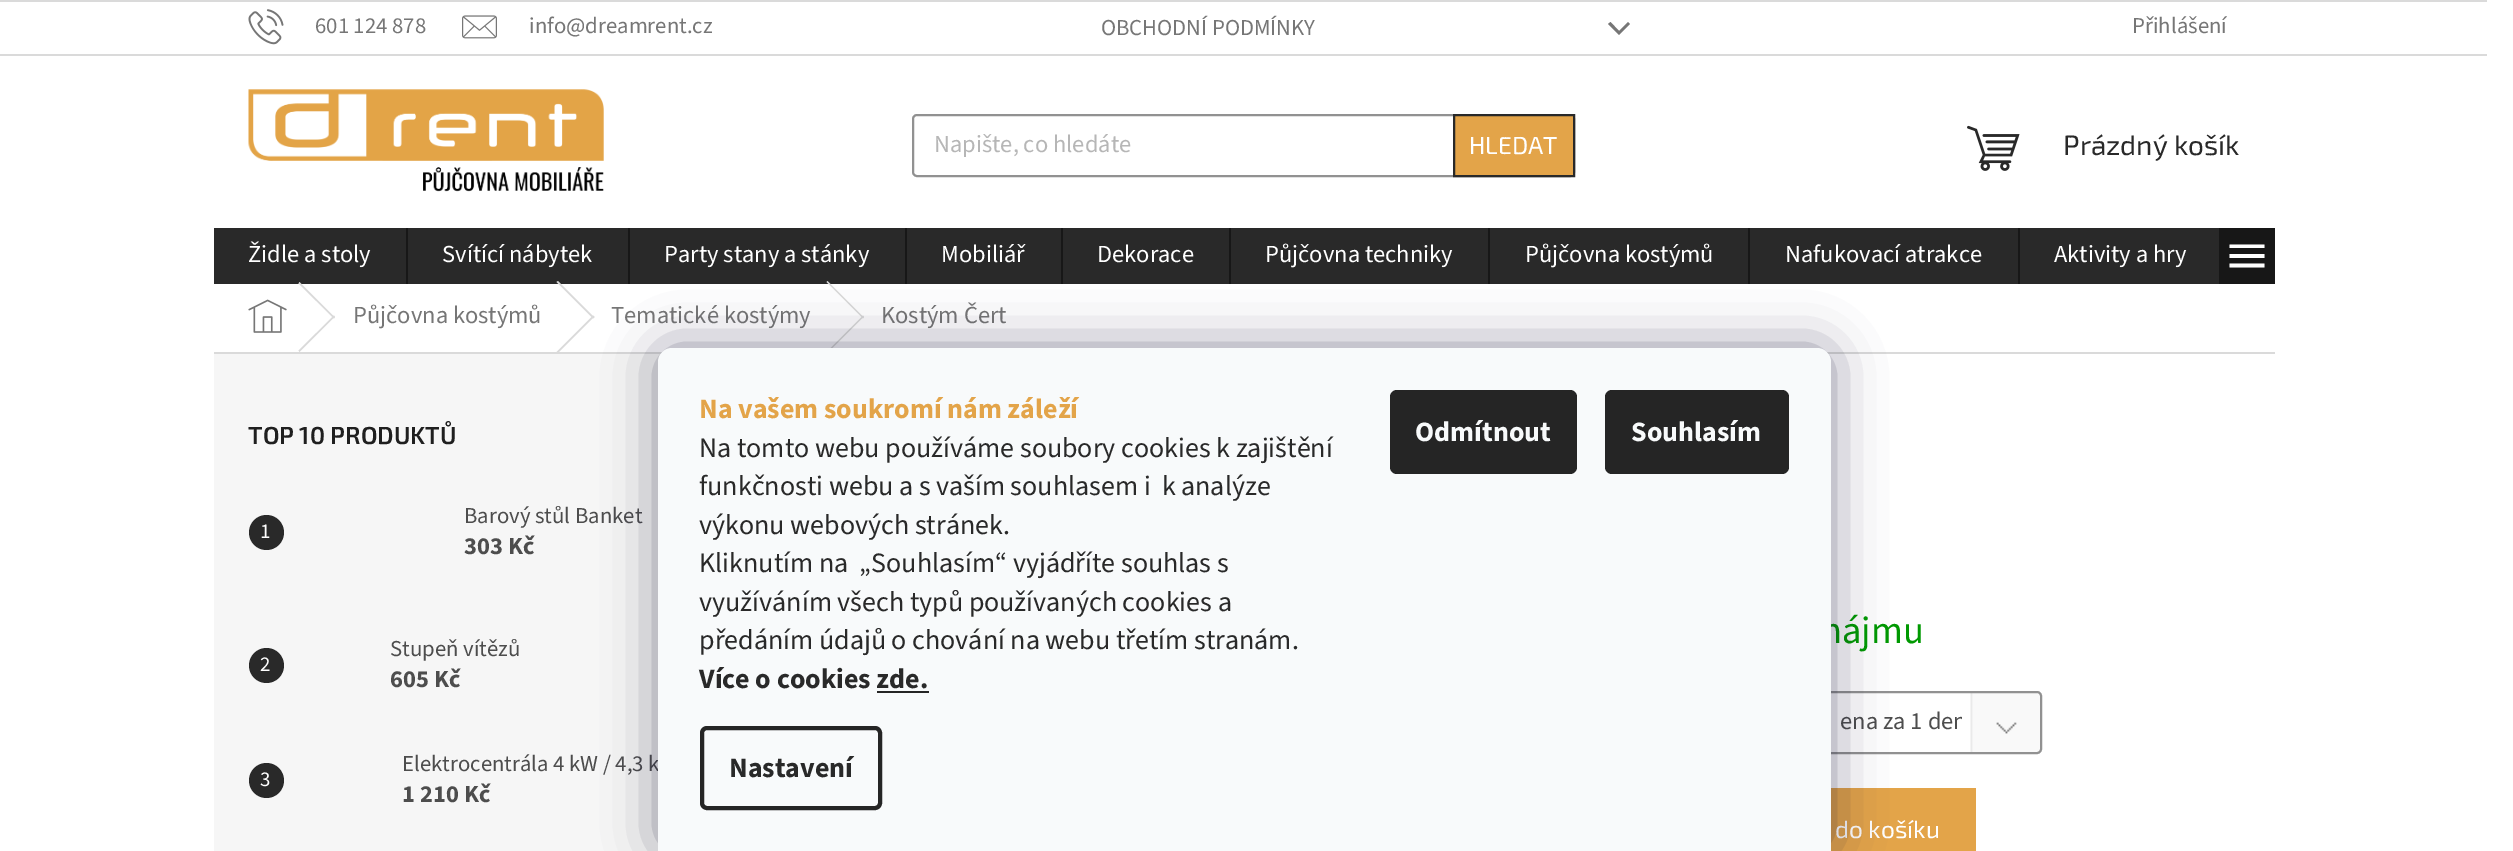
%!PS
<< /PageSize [2513 851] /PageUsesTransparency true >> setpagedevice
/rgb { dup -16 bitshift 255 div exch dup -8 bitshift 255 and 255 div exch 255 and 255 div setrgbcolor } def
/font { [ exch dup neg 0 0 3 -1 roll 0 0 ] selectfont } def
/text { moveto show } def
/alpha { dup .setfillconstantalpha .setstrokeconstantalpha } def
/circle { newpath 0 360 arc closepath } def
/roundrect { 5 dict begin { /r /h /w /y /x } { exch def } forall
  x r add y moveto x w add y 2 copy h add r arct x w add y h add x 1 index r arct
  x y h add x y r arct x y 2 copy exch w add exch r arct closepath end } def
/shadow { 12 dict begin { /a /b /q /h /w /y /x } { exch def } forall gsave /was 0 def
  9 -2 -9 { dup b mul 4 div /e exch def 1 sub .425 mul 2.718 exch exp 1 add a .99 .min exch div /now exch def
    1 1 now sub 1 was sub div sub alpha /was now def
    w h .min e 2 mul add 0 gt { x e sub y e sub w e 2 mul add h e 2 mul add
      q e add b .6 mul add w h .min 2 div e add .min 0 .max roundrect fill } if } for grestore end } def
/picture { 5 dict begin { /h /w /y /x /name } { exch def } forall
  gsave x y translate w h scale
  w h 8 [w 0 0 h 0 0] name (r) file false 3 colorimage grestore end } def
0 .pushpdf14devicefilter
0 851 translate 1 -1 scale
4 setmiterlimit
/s1 { /SourceSans3-Regular 22.75 font 16#767676 rgb } def
/s2 { /SourceSans3-Regular 24.5 font 16#B6B6B6 rgb } def
/s3 { /Exo2-Regular 24.5 font 16#FFFFFF rgb } def
/s4 { /Exo2-Regular 28 font 16#292929 rgb } def
/s5 { /SourceSans3-Regular 24.5 font 16#FFFFFF rgb } def
/s6 { /SourceSans3-Regular 24.5 font 16#767676 rgb } def
/s7 { /Exo2-SemiBold 24.5 font 16#1F1F1F rgb } def
/s8 { /SourceSans3-Regular 21 font 16#FFFFFF rgb } def
/s9 { /SourceSans3-Regular 22.75 font 16#4D4D4D rgb } def
/s10 { /SourceSans3-Bold 24.5 font 16#4D4D4D rgb } def
/s11 { /SourceSans3-Regular 38.5 font 16#009901 rgb } def
/s12 { /SourceSans3-Regular 24.5 font 16#4D4D4D rgb } def
/s13 { /SourceSans3-Bold 28 font 16#E3A449 rgb } def
/s14 { /SourceSans3-Regular 28 font 16#292929 rgb } def
/s15 { /SourceSans3-Bold 28 font 16#292929 rgb } def
/s16 { /SourceSans3-Bold 28 font 16#F8FAFB rgb } def
16#FFFFFF rgb
0 0 2513 851 rectfill
16#DADADA rgb
0 0 2487 2 rectfill
0 54 2487 2 rectfill
(pic1.raw) 248 9 36 36 picture
s1
(601 124 878) 315 33 text
(pic2.raw) 462 15 35 24 picture
(info@dreamrent.cz) 529 33 text
(OBCHODNÍ PODMÍNKY) 1101 35 text
1608 24 moveto 1610.5 22 lineto 1619 31 lineto 1628 22 lineto 1630 24 lineto 1619 35 lineto closepath fill
(Přihlášení) 2132 33 text
(pic3.raw) 248 89 356 103 picture
16#919191 rgb
2 setlinewidth
913 115 661 61 4 roundrect stroke
s2
(Napište, co hledáte) 934 152 text
16#E3A449 rgb
1454 115 moveto 1574 115 lineto 1574 176 lineto 1454 176 lineto closepath gsave fill grestore
16#292929 rgb
stroke
s3
(HLEDAT) 1469 154 text
(pic4.raw) 1967 125 53 46 picture
s4
(Prázdný košík) 2063 155 text
214 228 2005 56 rectfill
s5
(Židle a stoly) 248 262 text
16#171717 rgb
406 228 2 56 rectfill
s5
(Svítící nábytek) 442 262 text
16#171717 rgb
628 228 2 56 rectfill
s5
(Party stany a stánky) 664 262 text
16#171717 rgb
905 228 2 56 rectfill
s5
(Mobiliář) 941 262 text
16#171717 rgb
1061 228 2 56 rectfill
s5
(Dekorace) 1097 262 text
16#171717 rgb
1229 228 2 56 rectfill
s5
(Půjčovna techniky) 1265 262 text
16#171717 rgb
1488 228 2 56 rectfill
s5
(Půjčovna kostýmů) 1525 262 text
16#171717 rgb
1748 228 2 56 rectfill
s5
(Nafukovací atrakce) 1785 262 text
16#171717 rgb
2018 228 2 56 rectfill
s5
(Aktivity a hry) 2054 262 text
16#171717 rgb
2219 228 56 56 rectfill
16#FFFFFF rgb
2229.5 267.5 moveto 2264.5 267.5 lineto 2264.5 263.5 lineto 2229.5 263.5 lineto closepath 2229.5 258 moveto 2264.5 258 lineto 2264.5 254 lineto 2229.5 254 lineto closepath 2229.5 244.5 moveto 2229.5 248 lineto 2264.5 248 lineto 2264.5 244.5 lineto closepath fill
16#DADADA rgb
214 352 2061 2 rectfill
(pic5.raw) 248 299 39 34 picture
298.5 283.5 moveto 299.5 282 lineto 335 317.5 lineto 334 318.5 lineto closepath fill
334 315.5 moveto 335 316.5 lineto 299.5 352 lineto 298.5 350.5 lineto closepath fill
s6
(Půjčovna kostýmů) 353 323 text
16#DADADA rgb
556.5 282 moveto 558 281 lineto 594.5 317.5 lineto 593 318.5 lineto closepath fill
593 315.5 moveto 594.5 316.5 lineto 558 353 lineto 556.5 352 lineto closepath fill
s6
(Tematické kostýmy) 611 323 text
16#DADADA rgb
826.5 282 moveto 827.5 281 lineto 864 317.5 lineto 863 318.5 lineto closepath fill
863 315.5 moveto 864 316.5 lineto 827.5 353 lineto 826.5 352 lineto closepath fill
s6
(Kostým Čert) 881 323 text
16#F6F6F6 rgb
214 354 447 497 rectfill
s7
(TOP 10 PRODUKTŮ) 248 444 text
16#292929 rgb
266.5 532.5 17.5 circle fill
s8
(1) 260 538 text
s9
(Barový stůl Banket) 464 523 text
s10
(303 Kč) 464 554 text
16#292929 rgb
266.5 665.5 17.5 circle fill
s8
(2) 260 671 text
s9
(Stupeň vítězů) 390 656 text
s10
(605 Kč) 390 687 text
16#292929 rgb
266.5 780.5 17.5 circle fill
s8
(3) 260 786 text
s9
(Elektrocentrála 4 kW / 4,3 k) 402 771 text
s10
(1 210 Kč) 402 802 text
s11
(nájmu) 1821 643 text
(pic6.raw) 1970 691 70 63 picture
16#919191 rgb
1658 692 383 61 4 roundrect stroke
gsave
1678 704 284 38 rectclip
s12
(ena za 1 den) 1840 729 text
grestore
16#E3A449 rgb
1831 788 145 63 rectfill
s3
(do košíku) 1835 838 text
16#1B1939 rgb
658 348 1173 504 14 26 0.5 shadow
16#F8FAFB rgb
672 348 moveto 1817 348 lineto 1824.5 348 1831 354.5 1831 362 curveto 1831 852 lineto 658 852 lineto 658 362 lineto 658 354.5 664.5 348 672 348 curveto closepath fill
s13
(Na vašem soukromí nám záleží) 699 418 text
s14
(Na tomto webu používáme soubory cookies k zajištění) 699 457 text
(funkčnosti webu a s vaším souhlasem i  k analýze) 699 495 text
(výkonu webových stránek.) 699 534 text
(Kliknutím na  „Souhlasím“ vyjádříte souhlas s) 699 572 text
(využíváním všech typů používaných cookies a) 699 611 text
(předáním údajů o chování na webu třetím stranám.) 699 649 text
s15
(Více o cookies zde.) 699 688 text
16#252525 rgb
877 691 52 2 rectfill
4 setlinewidth
702 728 178 80 5 roundrect stroke
s15
(Nastavení) 729 777 text
16#252525 rgb
1390 390 187 84 7 roundrect fill
s16
(Odmítnout) 1415 441 text
16#252525 rgb
1605 390 184 84 7 roundrect fill
s16
(Souhlasím) 1631 441 text
.poppdf14devicefilter showpage
